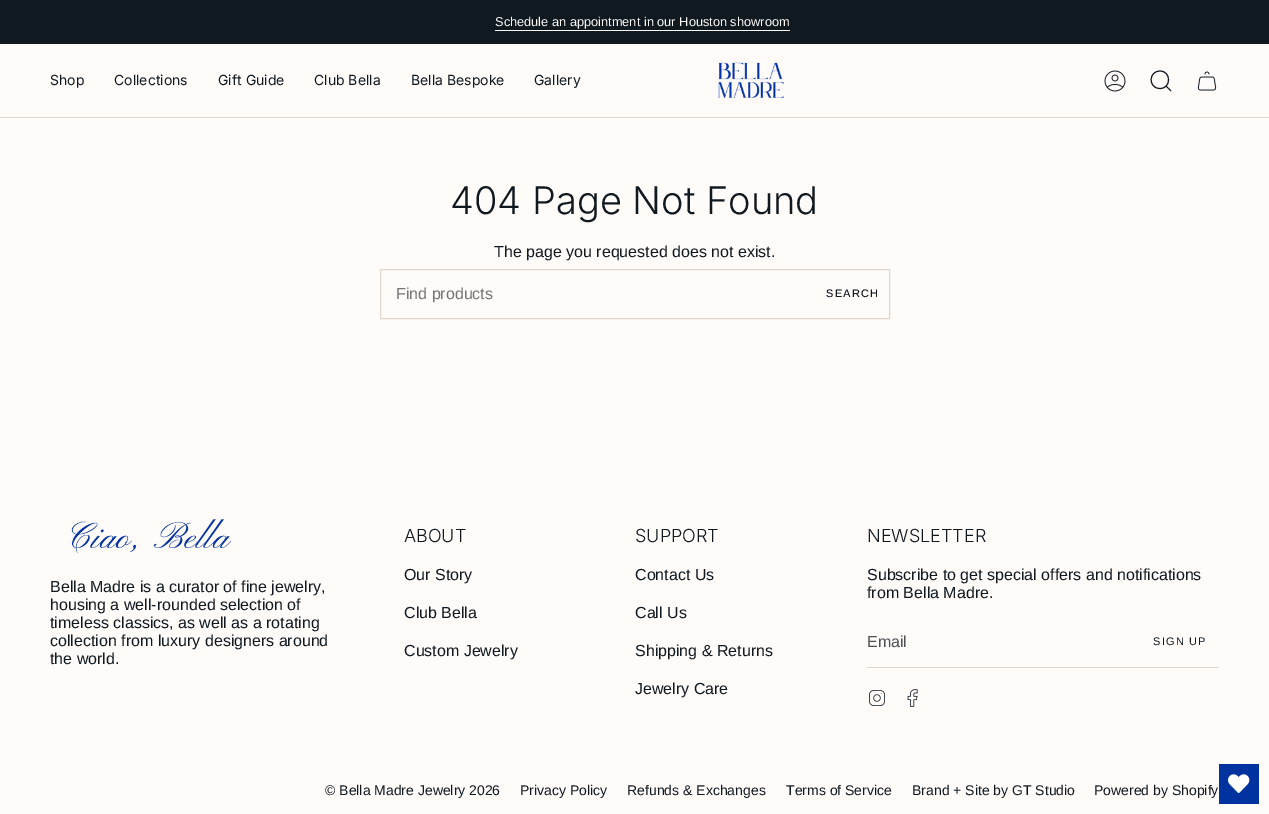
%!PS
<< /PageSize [1269 814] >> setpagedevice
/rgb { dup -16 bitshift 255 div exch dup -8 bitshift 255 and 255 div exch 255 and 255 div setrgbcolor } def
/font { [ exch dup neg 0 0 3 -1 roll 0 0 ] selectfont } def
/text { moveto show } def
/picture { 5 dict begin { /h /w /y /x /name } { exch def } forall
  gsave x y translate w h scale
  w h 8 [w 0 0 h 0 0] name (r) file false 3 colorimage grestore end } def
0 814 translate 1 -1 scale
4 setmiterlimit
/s1 { /Arimo-Regular 12.8 font 16#FEFBF9 rgb } def
/s2 { /Inter-Regular 14 font 16#101820 rgb } def
/s3 { /Inter-Light 38 font 16#101820 rgb } def
/s4 { /Arimo-Regular 16 font 16#101820 rgb } def
/s5 { /Arimo-Regular 16 font 16#757575 rgb } def
/s6 { /Inter-Light 18 font 16#101820 rgb } def
/s7 { /Arimo-Regular 16 font 16#4C5156 rgb } def
/s8 { /Arimo-Regular 14 font 16#101820 rgb } def
16#FEFBF9 rgb
0 0 1269 814 rectfill
16#101820 rgb
0 0 1269 44 rectfill
s1
(Schedule an appointment in our Houston showroom) 495 26 text
495 30 295 1 rectfill
16#E1D6CC rgb
0 117 1269 1 rectfill
s2
(Shop) 50 85 text
(Collections) 114 85 text
(Gift Guide) 218 85 text
(Club Bella) 314 85 text
(Bella Bespoke) 411 85 text
(Gallery) 534 85 text
(pic1.raw) 718 62 66 36 picture
(pic2.raw) 1104 70 22 22 picture
1160 71 moveto 1171.5 71 1171.5 89 1159.5 88.5 curveto 1148 88 1148.5 71 1160 71 curveto closepath 1166 86 moveto 1171 91 lineto stroke
(pic3.raw) 1197 71 20 20 picture
s3
(404 Page Not Found) 450 214 text
s4
(The page you requested does not exist.) 494 257 text
16#E1D6CC rgb
380.5 269.5 509 49 rectstroke
s5
(Find products) 396 299 text
/Arimo-Medium 11 font
16#101820 rgb
826 297 moveto 1.25 0 (SEARCH) ashow
(pic4.raw) 71 519 161 34 picture
s4
(Bella Madre is a curator of fine jewelry,) 50 592 text
(housing a well-rounded selection of) 50 610 text
(timeless classics, as well as a rotating) 50 628 text
(collection from luxury designers around) 50 646 text
(the world.) 50 664 text
s6
(ABOUT) 404 542 text
s4
(Our Story) 404 580 text
(Club Bella) 404 618 text
(Custom Jewelry) 404 656 text
s6
(SUPPORT) 635 542 text
s4
(Contact Us) 635 580 text
(Call Us) 635 618 text
(Shipping & Returns) 635 656 text
(Jewelry Care) 635 694 text
s6
(NEWSLETTER) 867 542 text
s4
(Subscribe to get special offers and notifications) 867 580 text
(from Bella Madre.) 867 598 text
16#E1D6CC rgb
867 667 352 1 rectfill
s7
(Email) 867 647 text
/Arimo-Regular 11 font
16#101820 rgb
1153 645 moveto 1.25 0 (SIGN UP) ashow
(pic5.raw) 869 690 16 16 picture
(pic6.raw) 907 689 11 18 picture
s8
(© Bella Madre Jewelry 2026) 325 795 text
(Privacy Policy) 520 795 text
(Refunds & Exchanges) 627 795 text
(Terms of Service) 786 795 text
(Brand + Site by GT Studio) 912 795 text
(Powered by Shopify) 1094 795 text
16#0032A0 rgb
1219 764 40 40 rectfill
(pic7.raw) 1228 774 22 19 picture
showpage
